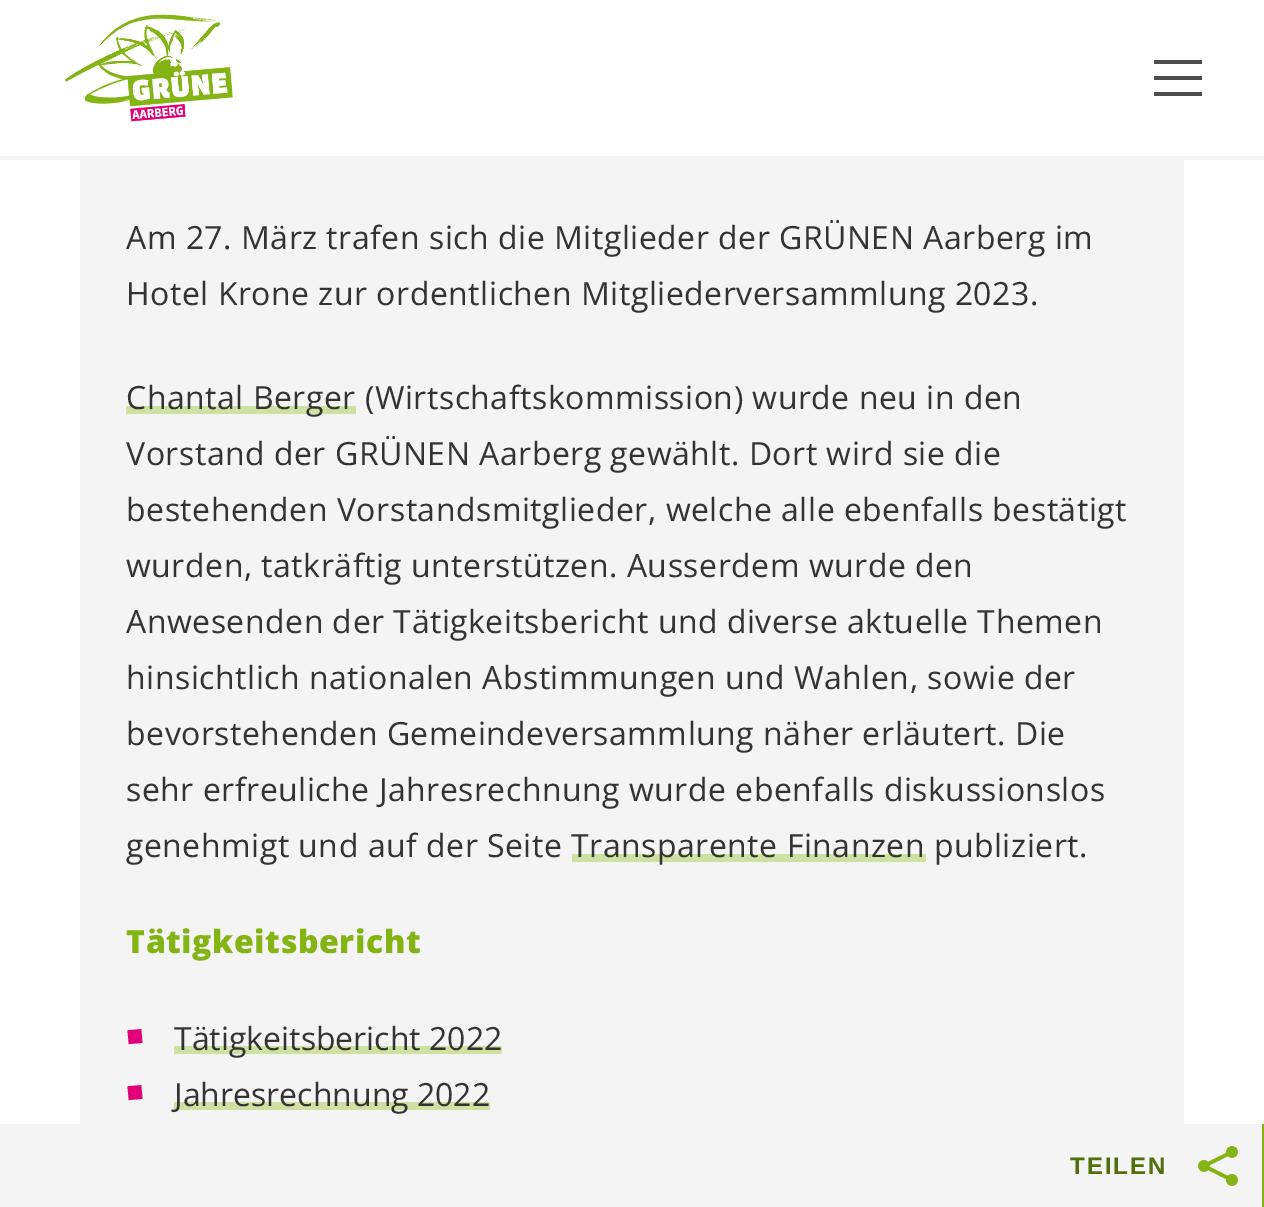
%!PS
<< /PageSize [1264 1207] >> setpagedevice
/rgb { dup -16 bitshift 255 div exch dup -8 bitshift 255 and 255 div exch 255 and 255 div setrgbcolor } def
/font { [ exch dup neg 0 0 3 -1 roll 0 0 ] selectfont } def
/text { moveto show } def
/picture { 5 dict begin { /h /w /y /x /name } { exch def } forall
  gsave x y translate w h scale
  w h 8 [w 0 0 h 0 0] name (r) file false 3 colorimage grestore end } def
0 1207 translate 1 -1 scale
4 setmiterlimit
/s1 { /OpenSans-Regular 32 font 16#333333 rgb } def
16#FFFFFF rgb
0 0 1264 1207 rectfill
16#F4F4F4 rgb
0 156 1264 4 rectfill
(pic1.raw) 65 14 168 108 picture
16#4E4E4E rgb
1154 76 48 4 rectfill
1154 60 48 4 rectfill
1154 92 48 4 rectfill
16#F4F4F4 rgb
80 160 1104 964 rectfill
/OpenSans-Regular 32 font
16#333333 rgb
126 249 moveto 0.5 0 (Am 27. März trafen sich die Mitglieder der GRÜNEN Aarberg im) ashow
126 305 moveto 0.5 0 (Hotel Krone zur ordentlichen Mitgliederversammlung 2023.) ashow
16#CEE1A1 rgb
126 406 230 8 rectfill
16#333333 rgb
126 409 moveto 0.5 0 (Chantal Berger \(Wirtschaftskommission\) wurde neu in den) ashow
126 465 moveto 0.5 0 (Vorstand der GRÜNEN Aarberg gewählt. Dort wird sie die) ashow
126 521 moveto 0.5 0 (bestehenden Vorstandsmitglieder, welche alle ebenfalls bestätigt) ashow
126 577 moveto 0.5 0 (wurden, tatkräftig unterstützen. Ausserdem wurde den) ashow
126 633 moveto 0.5 0 (Anwesenden der Tätigkeitsbericht und diverse aktuelle Themen) ashow
126 689 moveto 0.5 0 (hinsichtlich nationalen Abstimmungen und Wahlen, sowie der) ashow
126 745 moveto 0.5 0 (bevorstehenden Gemeindeversammlung näher erläutert. Die) ashow
126 801 moveto 0.5 0 (sehr erfreuliche Jahresrechnung wurde ebenfalls diskussionslos) ashow
126 857 moveto 0.5 0 (genehmigt und auf der Seite) ashow
16#CEE1A1 rgb
572 854 354 8 rectfill
16#333333 rgb
571 857 moveto 0.5 0 (Transparente Finanzen publiziert.) ashow
/OpenSans-ExtraBold 32 font
16#84B414 rgb
126 953 moveto 0.6 0 (Tätigkeitsbericht) ashow
/LiberationSans-Regular 29 font
16#E10078 rgb
gsave 127 1046 translate -5 rotate 0 0 moveto (■) show grestore
16#CEE1A1 rgb
174 1046 328 8 rectfill
s1
(Tätigkeitsbericht 2022) 174 1050 text
/LiberationSans-Regular 29 font
16#E10078 rgb
gsave 127 1102 translate -5 rotate 0 0 moveto (■) show grestore
16#CEE1A1 rgb
174 1102 316 8 rectfill
s1
(Jahresrechnung 2022) 174 1106 text
16#F4F4F4 rgb
0 1124 1262 83 rectfill
16#84B414 rgb
1262 1124 2 83 rectfill
/LiberationSans-Bold 24 font
16#516F0A rgb
1070 1174 moveto 2 0 (TEILEN) ashow
(pic2.raw) 1198 1146 40 40 picture
showpage
